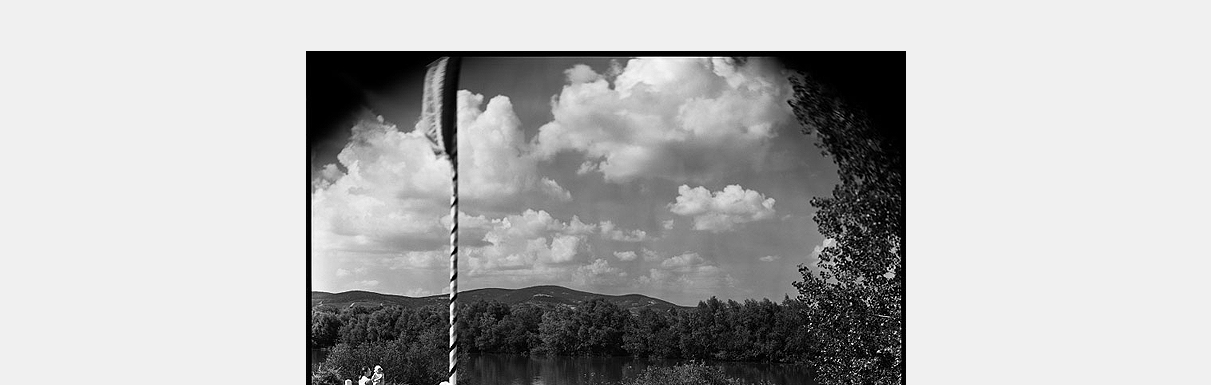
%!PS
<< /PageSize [1211 385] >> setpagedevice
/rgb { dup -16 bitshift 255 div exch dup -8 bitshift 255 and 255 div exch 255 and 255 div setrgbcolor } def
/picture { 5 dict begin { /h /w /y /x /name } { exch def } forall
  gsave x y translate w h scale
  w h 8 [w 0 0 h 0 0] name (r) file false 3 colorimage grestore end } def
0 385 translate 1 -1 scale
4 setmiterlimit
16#F0F0F0 rgb
0 0 1211 385 rectfill
(pic1.raw) 306 51 600 334 picture
showpage
